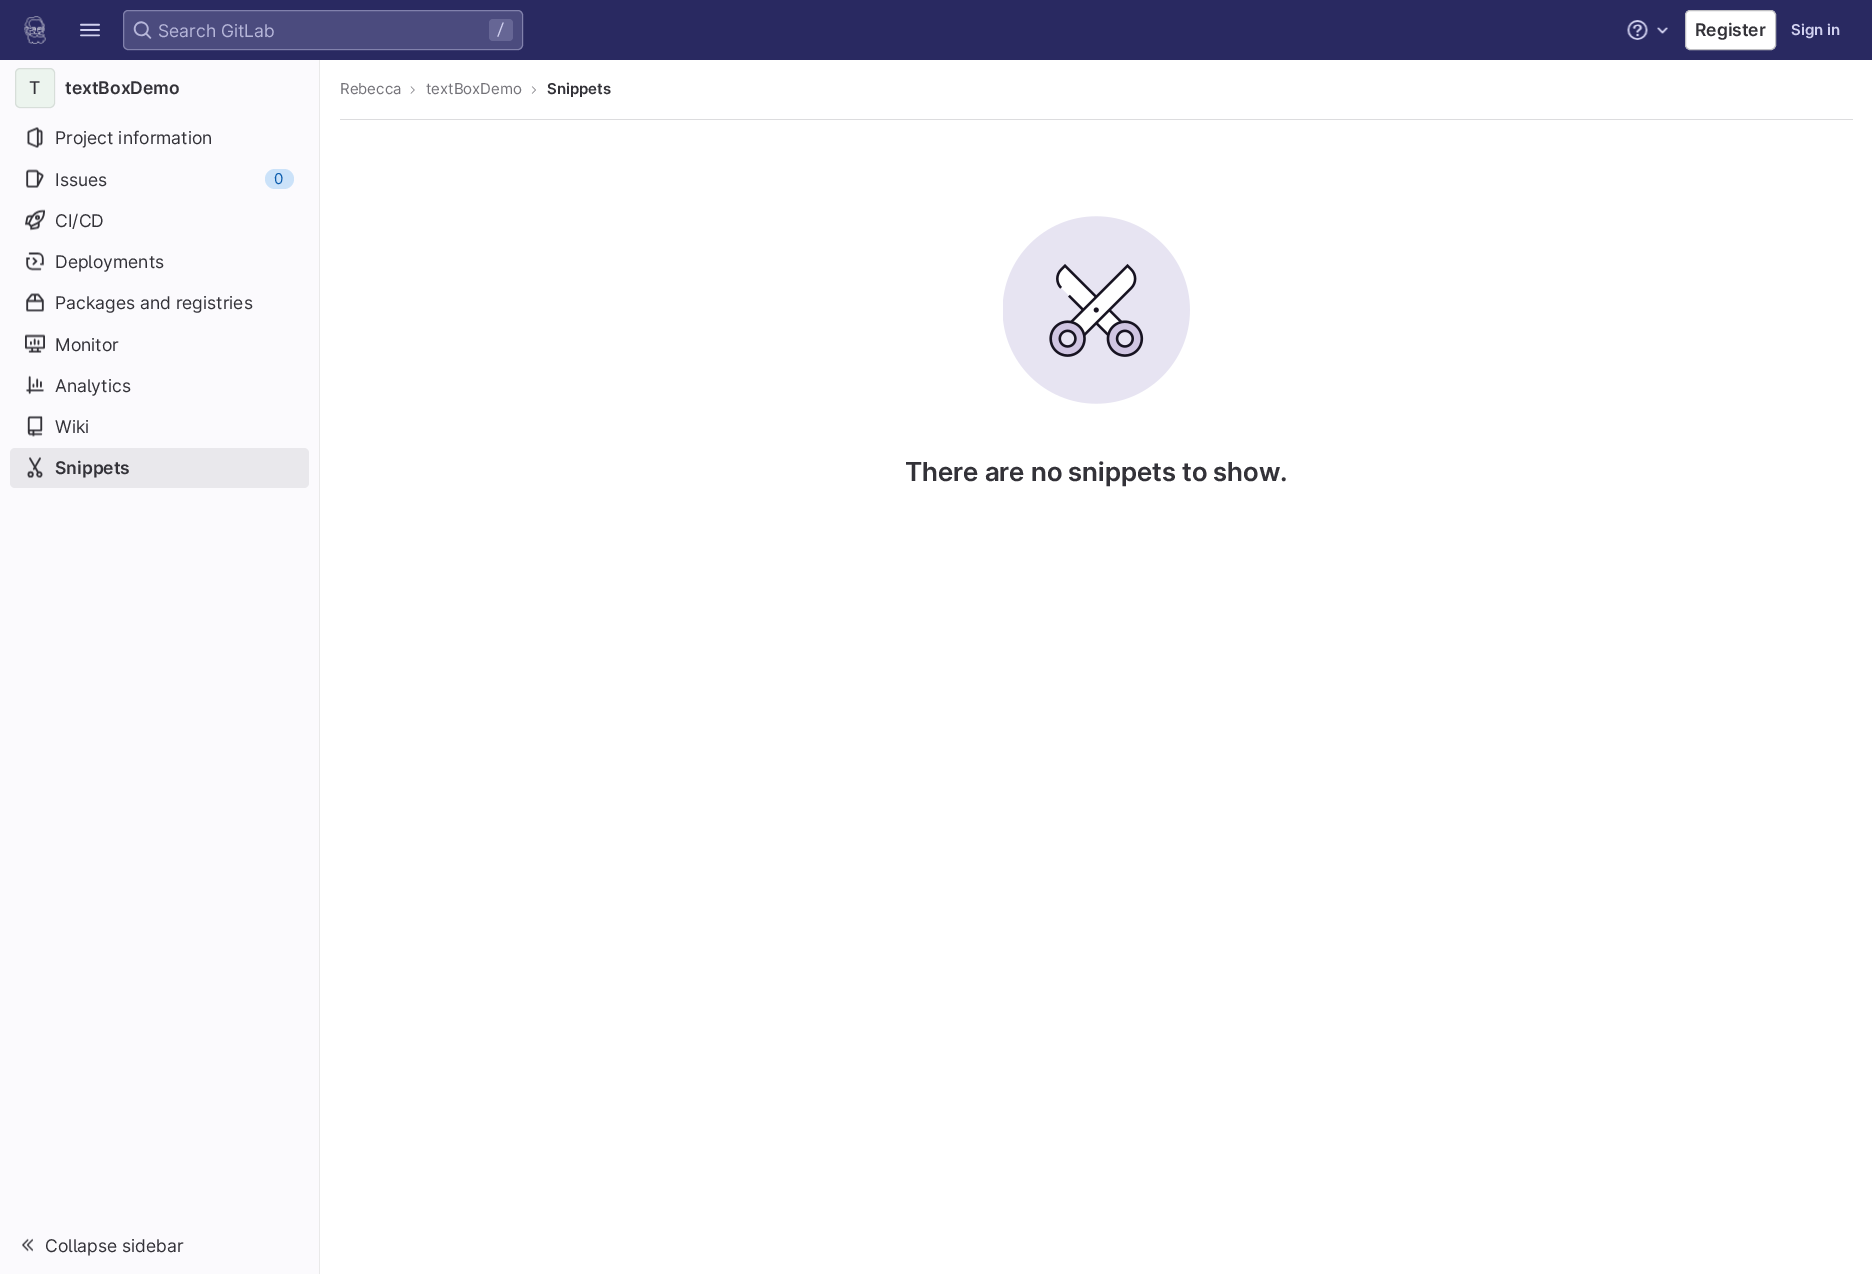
%!PS
<< /PageSize [1872 1274] /PageUsesTransparency true >> setpagedevice
/rgb { dup -16 bitshift 255 div exch dup -8 bitshift 255 and 255 div exch 255 and 255 div setrgbcolor } def
/font { [ exch dup neg 0 0 3 -1 roll 0 0 ] selectfont } def
/text { moveto show } def
/alpha { dup .setfillconstantalpha .setstrokeconstantalpha } def
/roundrect { 5 dict begin { /r /h /w /y /x } { exch def } forall
  x r add y moveto x w add y 2 copy h add r arct x w add y h add x 1 index r arct
  x y h add x y r arct x y 2 copy exch w add exch r arct closepath end } def
/picture { 5 dict begin { /h /w /y /x /name } { exch def } forall
  gsave x y translate w h scale
  w h 8 [w 0 0 h 0 0] name (r) file false 3 colorimage grestore end } def
0 .pushpdf14devicefilter
0 1274 translate 1 -1 scale
4 setmiterlimit
/s1 { /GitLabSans-Regular 17.5 font 16#B6B6D9 rgb } def
/s2 { /JetBrainsMono-Regular 15 font 16#D1D1F0 rgb } def
/s3 { /GitLabSans-SemiBold 17.5 font 16#333238 rgb } def
/s4 { /GitLabSans-SemiBold 15 font 16#D1D1F0 rgb } def
/s5 { /GitLabSans-Regular 17.5 font 16#333238 rgb } def
/s6 { /GitLabSans-Regular 15 font 16#0B5CAD rgb } def
/s7 { /GitLabSans-Regular 15 font 16#737278 rgb } def
/s8 { /GitLabSans-SemiBold 15 font 16#333238 rgb } def
/s9 { /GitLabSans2-SemiBold 26.25 font 16#333238 rgb } def
16#FFFFFF rgb
0 0 1872 1274 rectfill
16#292961 rgb
0 0 1872 60 rectfill
(pic1.raw) 24 16 22 28 picture
(pic2.raw) 80 23 20 14 picture
16#4B4B7E rgb
123 10 400 40 5 roundrect fill
0.4 alpha
16#D1D1F0 rgb
123.5 10.5 399 39 4.5 roundrect stroke
1 alpha
(pic3.raw) 133 21 19 18 picture
s1
(Search GitLab) 158 37 text
16#666695 rgb
489 19 24 22 4 roundrect fill
s2
(/) 496 35 text
(pic4.raw) 1627 20 21 20 picture
(pic5.raw) 1657 27 11 7 picture
16#FFFFFF rgb
1685.5 10.5 90 39 4.5 roundrect gsave fill grestore
16#BFBFC3 rgb
stroke
s3
(Register) 1695 36 text
s4
(Sign in) 1791 35 text
16#FBFAFD rgb
0 60 319 1214 rectfill
16#E9E9E9 rgb
319 60 1 1214 rectfill
16#ECF4EE rgb
15 68 40 40 5 roundrect fill
0.1 alpha
16#1F1E24 rgb
15.5 68.5 39 39 4.5 roundrect stroke
1 alpha
s5
(T) 29 94 text
s3
(textBoxDemo) 65 94 text
(pic6.raw) 27 127 16 21 picture
s5
(Project information) 55 144 text
(pic7.raw) 26 169 18 19 picture
(Issues) 55 186 text
16#CBE2F9 rgb
265 169 29 20 10 roundrect fill
s6
(0) 274 184 text
(pic8.raw) 25 209 20 22 picture
s5
(CI/CD) 55 227 text
(pic9.raw) 26 252 18 19 picture
(Deployments) 55 268 text
(pic10.raw) 26 293 18 19 picture
(Packages and registries) 55 309 text
(pic11.raw) 25 334 20 19 picture
(Monitor) 55 351 text
(pic12.raw) 26 375 18 20 picture
(Analytics) 55 392 text
(pic13.raw) 27 415 16 22 picture
(Wiki) 55 433 text
16#E9E8EC rgb
10 448 299 40 5 roundrect fill
(pic14.raw) 27 457 16 21 picture
s3
(Snippets) 55 474 text
(pic15.raw) 22 1238 11 14 picture
s5
(Collapse sidebar) 45 1252 text
16#DCDCDE rgb
340 119 1513 1 rectfill
s7
(Rebecca) 340 94 text
(pic16.raw) 410 86 5 8 picture
(textBoxDemo) 426 94 text
(pic17.raw) 531 86 5 8 picture
s8
(Snippets) 547 94 text
(pic18.raw) 1003 216 187 188 picture
s9
(There are no snippets to show.) 905 481 text
.poppdf14devicefilter showpage
